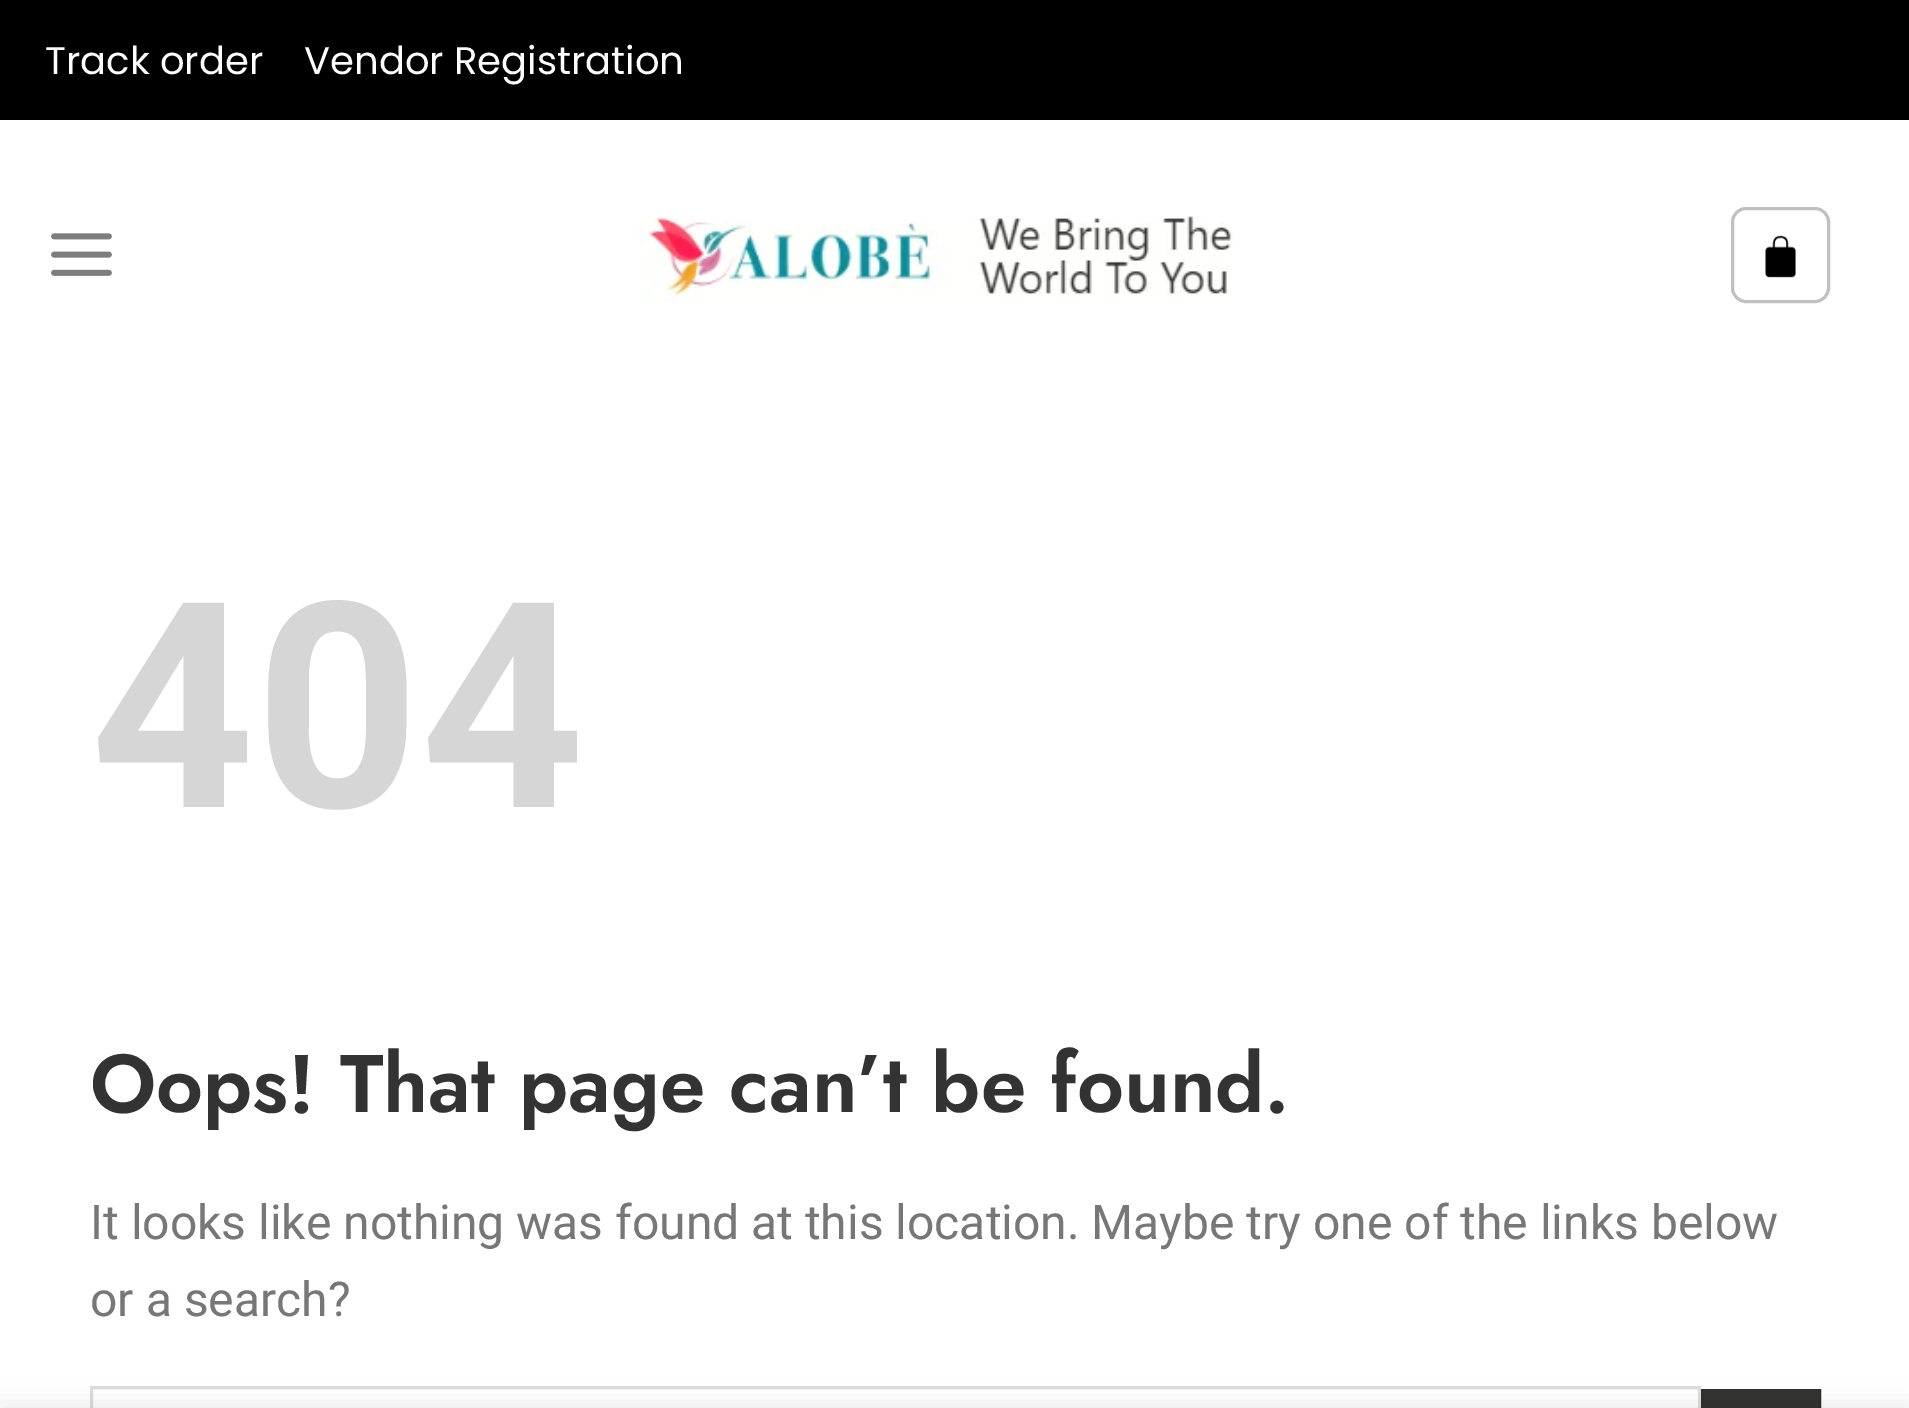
%!PS
<< /PageSize [1909 1408] /PageUsesTransparency true >> setpagedevice
/rgb { dup -16 bitshift 255 div exch dup -8 bitshift 255 and 255 div exch 255 and 255 div setrgbcolor } def
/font { [ exch dup neg 0 0 3 -1 roll 0 0 ] selectfont } def
/text { moveto show } def
/alpha { dup .setfillconstantalpha .setstrokeconstantalpha } def
/roundrect { 5 dict begin { /r /h /w /y /x } { exch def } forall
  x r add y moveto x w add y 2 copy h add r arct x w add y h add x 1 index r arct
  x y h add x y r arct x y 2 copy exch w add exch r arct closepath end } def
/shadow { 12 dict begin { /a /b /q /h /w /y /x } { exch def } forall gsave /was 0 def
  9 -2 -9 { dup b mul 4 div /e exch def 1 sub .425 mul 2.718 exch exp 1 add a .99 .min exch div /now exch def
    1 1 now sub 1 was sub div sub alpha /was now def
    w h .min e 2 mul add 0 gt { x e sub y e sub w e 2 mul add h e 2 mul add
      q e add b .6 mul add w h .min 2 div e add .min 0 .max roundrect fill } if } for grestore end } def
/picture { 5 dict begin { /h /w /y /x /name } { exch def } forall
  gsave x y translate w h scale
  w h 8 [w 0 0 h 0 0] name (r) file false 3 colorimage grestore end } def
0 .pushpdf14devicefilter
0 1408 translate 1 -1 scale
4 setmiterlimit
/s1 { /Poppins-Regular 38.5 font 16#FFFFFF rgb } def
/s2 { /Roboto-Bold 288 font 16#D6D6D6 rgb } def
/s3 { /Jost-SemiBold 81.6 font 16#333333 rgb } def
/s4 { /Roboto-Regular 48 font 16#777777 rgb } def
16#FFFFFF rgb
0 0 1909 1408 rectfill
16#000000 rgb
0 0 1909 120 rectfill
s1
(Track order) 45 74 text
(Vendor Registration) 304 74 text
(pic1.raw) 51 233 61 43 picture
(pic2.raw) 639 215 594 88 picture
16#C0C0C0 rgb
3 setlinewidth
1732.5 208.5 96 93 13.5 roundrect stroke
(pic3.raw) 1765 235 31 43 picture
s2
(404) 90 807 text
s3
(Oops! That page can’t be found.) 90 1112 text
s4
(It looks like nothing was found at this location. Maybe try one of the links below) 90 1239 text
(or a search?) 90 1316 text
16#DDDDDD rgb
91.5 1387.5 1608 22 rectstroke
16#333331 rgb
1702.5 1390.5 moveto 1819.5 1390.5 lineto 1819.5 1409.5 lineto 1702.5 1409.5 lineto closepath gsave fill grestore
16#30302F rgb
stroke
16#000000 rgb
0 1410 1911 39 0 13.5 0.14 shadow
.poppdf14devicefilter showpage
